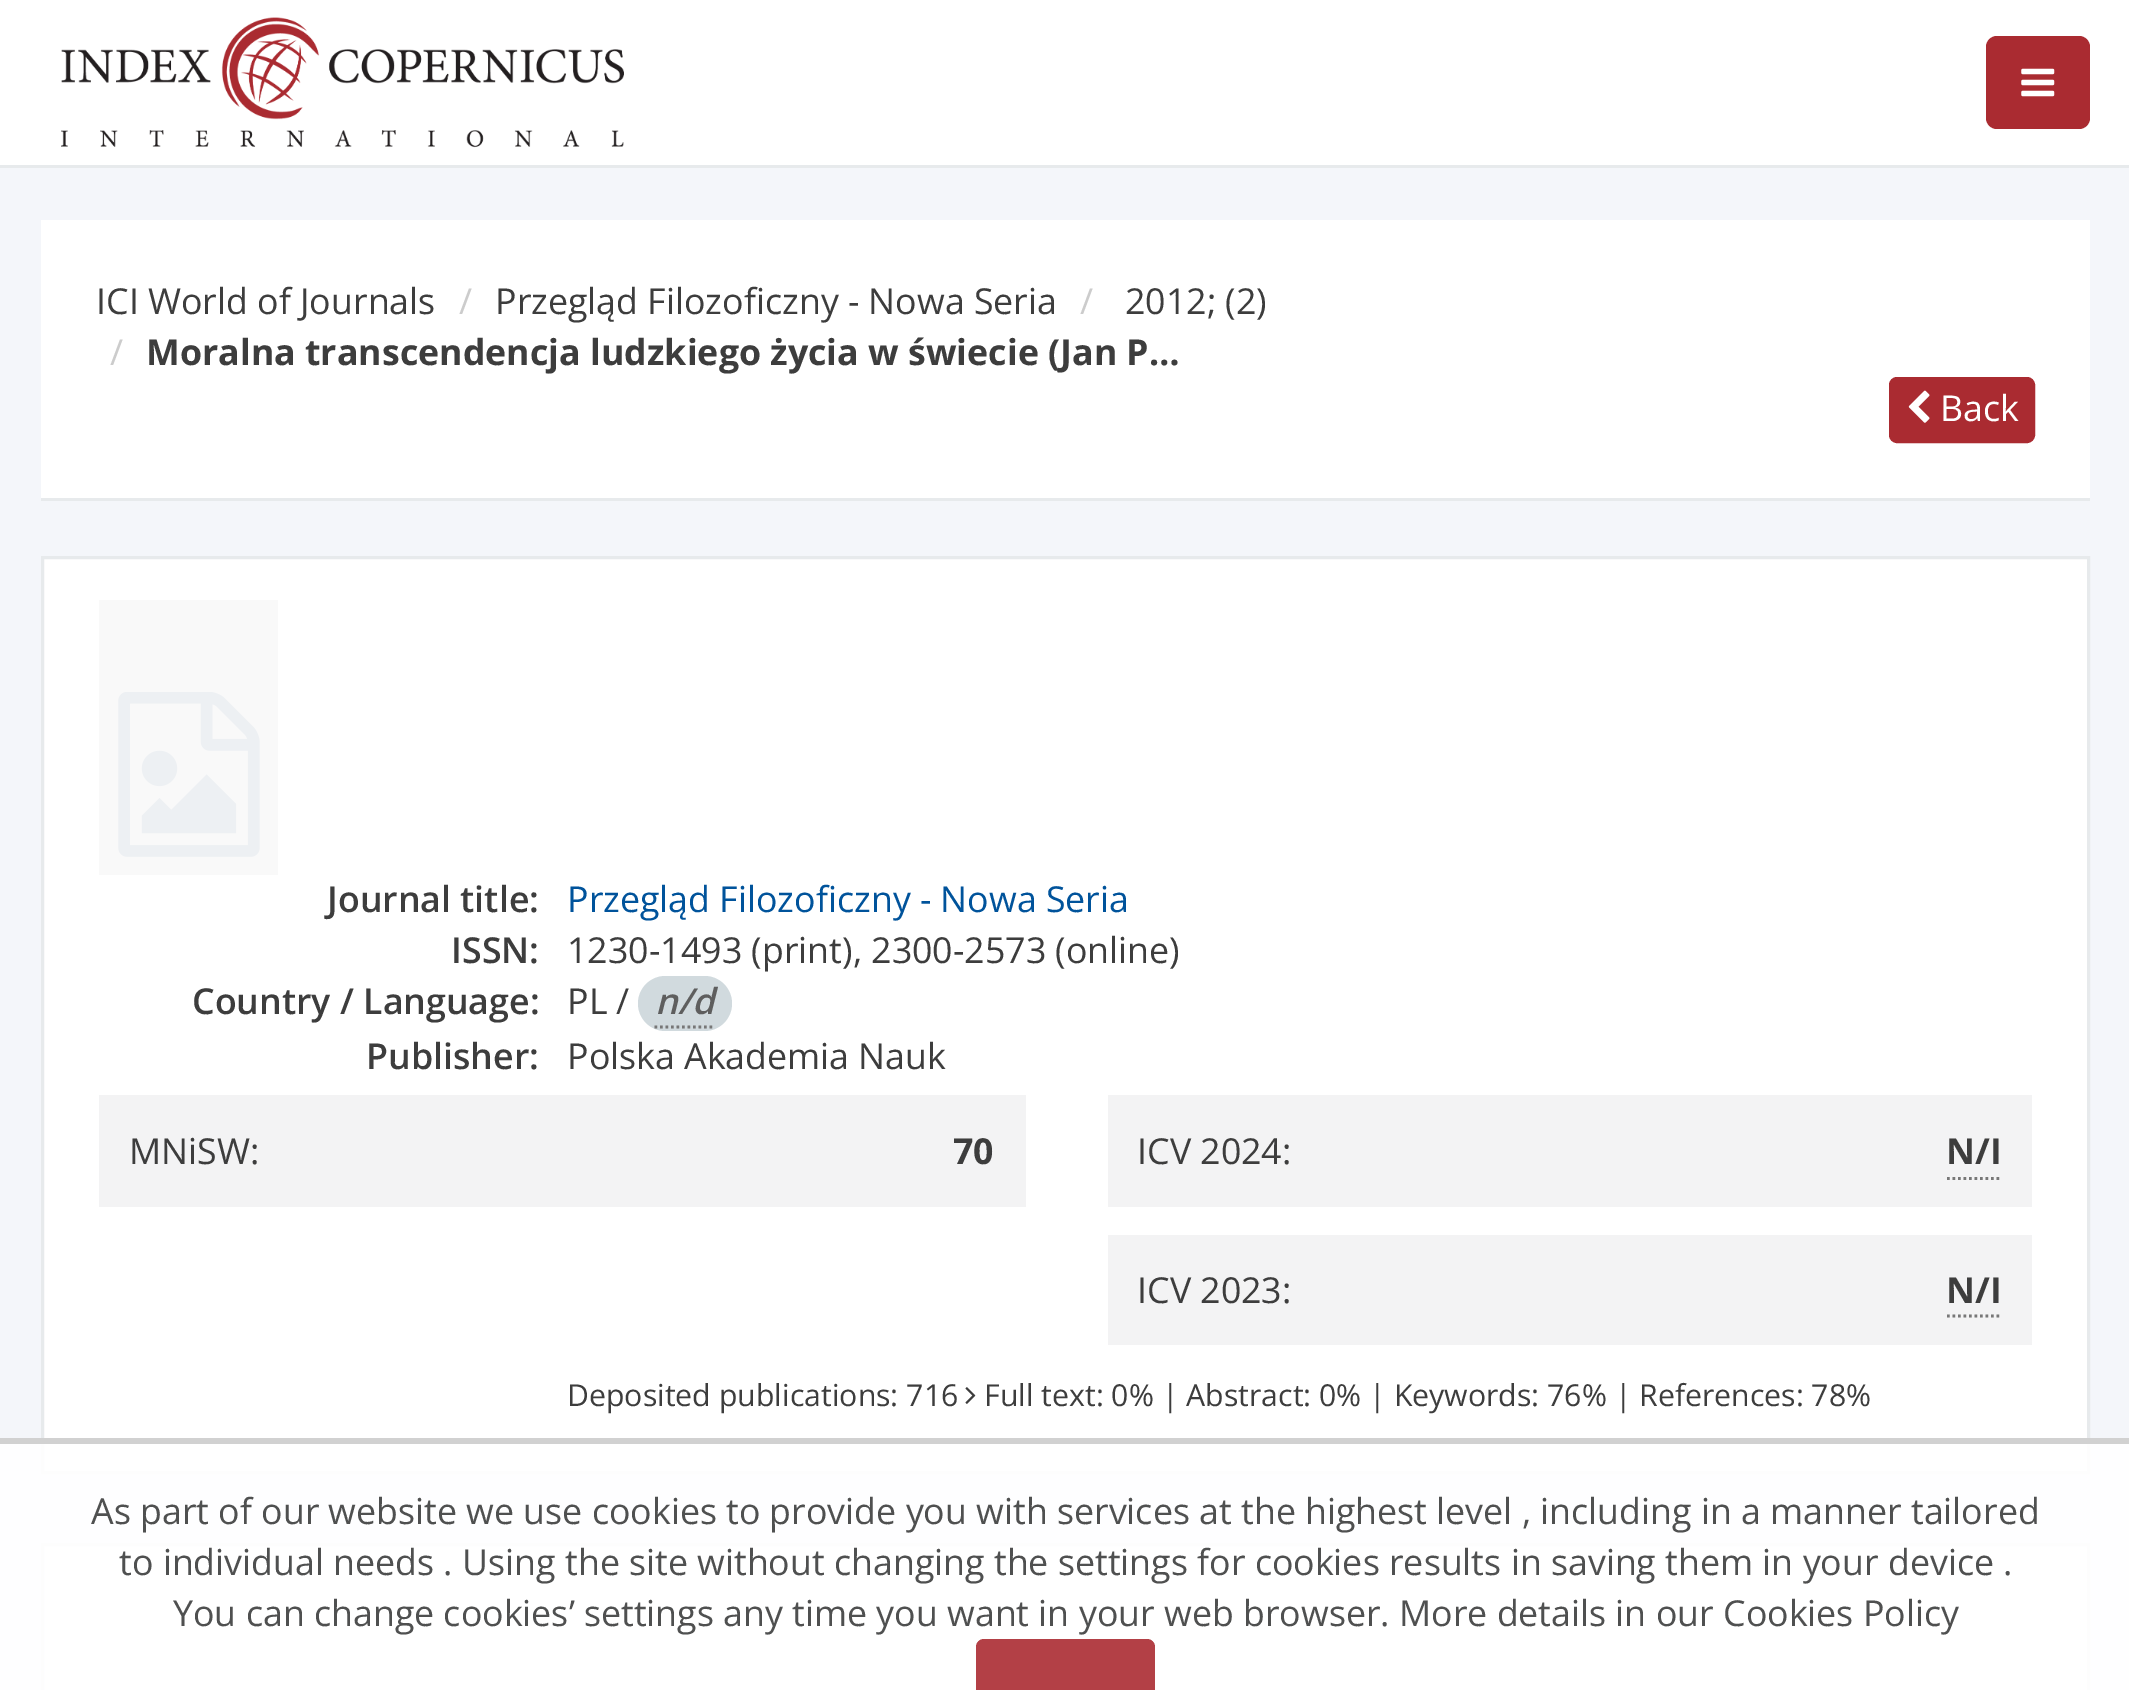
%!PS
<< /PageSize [2129 1690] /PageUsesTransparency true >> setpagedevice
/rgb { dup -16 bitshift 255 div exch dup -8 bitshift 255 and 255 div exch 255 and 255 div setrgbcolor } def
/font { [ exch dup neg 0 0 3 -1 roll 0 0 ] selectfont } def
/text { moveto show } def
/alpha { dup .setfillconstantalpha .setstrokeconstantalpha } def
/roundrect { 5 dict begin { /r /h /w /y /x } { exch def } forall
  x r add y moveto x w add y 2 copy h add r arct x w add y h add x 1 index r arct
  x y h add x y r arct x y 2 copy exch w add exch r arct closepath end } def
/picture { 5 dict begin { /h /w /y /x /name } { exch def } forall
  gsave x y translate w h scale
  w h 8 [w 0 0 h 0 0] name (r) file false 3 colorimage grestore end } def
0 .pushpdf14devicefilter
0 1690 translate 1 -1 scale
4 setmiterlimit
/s1 { /OpenSans-Regular 35.75 font 16#3D3D3D rgb } def
/s2 { /OpenSans-Regular 35.75 font 16#CCCCCC rgb } def
/s3 { /OpenSans-Bold 35.75 font 16#3D3D3D rgb } def
/s4 { /OpenSans-Regular 35.75 font 16#FFFFFF rgb } def
/s5 { /OpenSans-SemiBold 35.75 font 16#3D3D3D rgb } def
/s6 { /OpenSans-Regular 35.75 font 16#00539B rgb } def
/s7 { /OpenSans-SemiBoldItalic 35.75 font 16#5E5E5E rgb } def
/s8 { /OpenSans-Regular 30.25 font 16#3D3D3D rgb } def
/s9 { /OpenSans-Regular 35.75 font 16#4F5050 rgb } def
16#F4F6FA rgb
0 0 2129 1690 rectfill
16#FFFFFF rgb
0 0 2129 165 rectfill
16#E7EAEC rgb
0 165 2129 3 rectfill
(pic1.raw) 61 17 563 131 picture
16#AA2B31 rgb
1986 36 104 93 11 roundrect fill
(pic2.raw) 2021 68 34 29 picture
16#FFFFFF rgb
41 220 2049 278 rectfill
16#E7EAEC rgb
41 498 2049 3 rectfill
s1
(ICI World of Journals) 96 314 text
s2
(/) 459 314 text
s1
(Przegląd Filozoficzny - Nowa Seria) 495 314 text
s2
(/) 1080 314 text
s1
(2012; \(2\)) 1125 314 text
s2
(/) 110 365 text
s3
(Moralna transcendencja ludzkiego życia w świecie \(Jan P…) 146 365 text
16#AA2B31 rgb
1890.5 378.5 143 63 6.5 roundrect gsave fill grestore
3 setlinewidth
stroke
(pic3.raw) 1908 390 22 33 picture
s4
(Back) 1940 421 text
42.5 557.5 moveto 2088.5 557.5 lineto 2088.5 1472.5 lineto 42.5 1472.5 lineto closepath gsave fill grestore
16#E7EAEC rgb
stroke
16#F9F9F9 rgb
99 600 179 275 rectfill
(pic4.raw) 118 692 142 165 picture
s5
(Journal title:) 327 912 text
s6
(Przegląd Filozoficzny - Nowa Seria) 567 912 text
s5
(ISSN:) 451 963 text
s1
(1230-1493 \(print\), 2300-2573 \(online\)) 567 963 text
s5
(Country / Language:) 192 1014 text
s1
(PL /) 567 1014 text
16#D1DADE rgb
638 976 94 55 27.5 roundrect fill
s7
(n/d) 655 1014 text
16#777777 rgb
2.8 setlinewidth
[2.75 2.75] 0 setdash
654.5 1027 moveto 715 1027 lineto stroke
s5
(Publisher:) 366 1069 text
s1
(Polska Akademia Nauk) 567 1069 text
16#F3F3F4 rgb
99 1095 927 112 rectfill
s1
(MNiSW:) 129 1164 text
s3
(70) 953 1164 text
16#F3F3F4 rgb
1108 1095 924 112 rectfill
s1
(ICV 2024:) 1137 1164 text
16#777777 rgb
1947 1178.5 moveto 2002 1178.5 lineto stroke
s3
(N/I) 1946 1164 text
16#F3F3F4 rgb
1108 1235 924 110 rectfill
s1
(ICV 2023:) 1137 1303 text
16#777777 rgb
1947 1316 moveto 2002 1316 lineto stroke
s3
(N/I) 1946 1303 text
s8
(Deposited publications: 716) 567 1406 text
(pic5.raw) 965 1387 11 17 picture
(Full text: 0% | Abstract: 0% | Keywords: 76% | References: 78%) 984 1406 text
16#FFFFFF rgb
42.5 1544.5 moveto 2088.5 1544.5 lineto 2088.5 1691.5 lineto 42.5 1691.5 lineto closepath gsave fill grestore
16#E7EAEC rgb
3 setlinewidth
[] 0 setdash
stroke
0.9 alpha
16#FFFFFF rgb
0 1444 2129 246 rectfill
1 alpha
16#D1D1D1 rgb
0 1438 2129 6 rectfill
s9
(As part of our website we use cookies to provide you with services at the highest level , including in a manner tailored) 91 1524 text
(to individual needs . Using the site without changing the settings for cookies results in saving them in your device .) 119 1575 text
(You can change cookies’ settings any time you want in your web browser. More details in our Cookies Policy) 173 1626 text
16#B34046 rgb
976 1639 179 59 8 roundrect fill
.poppdf14devicefilter showpage
